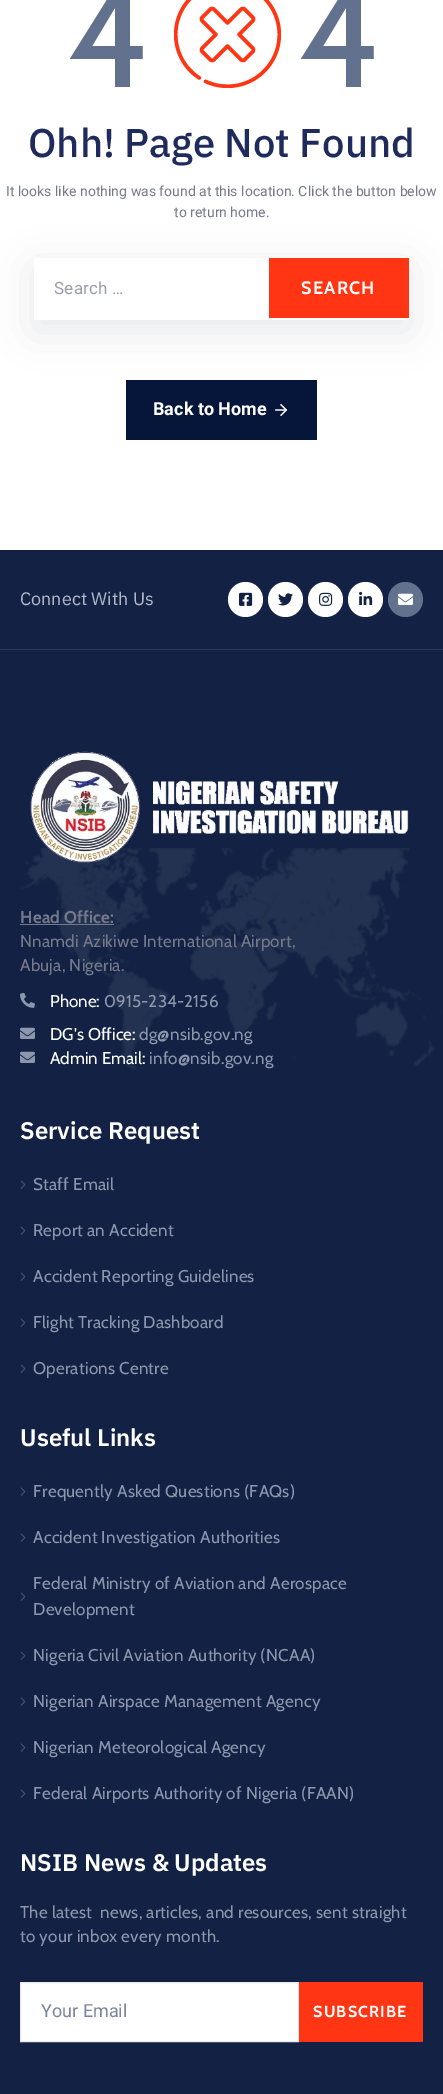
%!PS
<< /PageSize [443 2094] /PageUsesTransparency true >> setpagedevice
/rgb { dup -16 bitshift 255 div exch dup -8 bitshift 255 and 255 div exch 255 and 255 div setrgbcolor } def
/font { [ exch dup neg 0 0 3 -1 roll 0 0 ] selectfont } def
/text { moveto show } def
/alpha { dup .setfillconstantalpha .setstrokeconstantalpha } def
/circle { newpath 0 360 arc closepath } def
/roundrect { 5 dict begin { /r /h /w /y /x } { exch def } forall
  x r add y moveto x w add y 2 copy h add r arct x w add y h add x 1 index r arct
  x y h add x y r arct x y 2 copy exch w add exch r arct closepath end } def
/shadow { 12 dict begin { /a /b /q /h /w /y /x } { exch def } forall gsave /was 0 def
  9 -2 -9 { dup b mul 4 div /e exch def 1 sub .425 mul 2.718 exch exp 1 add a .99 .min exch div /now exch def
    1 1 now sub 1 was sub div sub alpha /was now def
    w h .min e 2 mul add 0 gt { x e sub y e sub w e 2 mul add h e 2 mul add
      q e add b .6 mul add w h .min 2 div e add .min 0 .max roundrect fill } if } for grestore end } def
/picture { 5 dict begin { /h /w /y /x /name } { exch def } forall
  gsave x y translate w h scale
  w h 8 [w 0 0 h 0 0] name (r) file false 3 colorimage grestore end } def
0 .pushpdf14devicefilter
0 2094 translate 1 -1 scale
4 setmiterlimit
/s1 { /IBMPlexSans-Medium 40 font 16#202B5D rgb } def
/s2 { /Heebo-Regular 14 font 16#75798A rgb } def
/s3 { /Heebo-Bold 18 font 16#FFFFFF rgb } def
/s4 { /IBMPlexSans-Regular 18 font 16#B0B8CA rgb } def
/s5 { /Cabin-Regular 17 font 16#FFFFFF rgb } def
/s6 { /IBMPlexSans-SemiBold 24 font 16#FFFFFF rgb } def
/s7 { /Heebo-Regular 18 font 16#7B859D rgb } def
16#FFFFFF rgb
0 0 443 2094 rectfill
(pic1.raw) 69 0 305 88 picture
s1
(Ohh! Page Not Found) 28 157 text
s2
(It looks like nothing was found at this location. Click the button below) 6 196 text
(to return home.) 174 217 text
gsave
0 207 moveto 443 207 lineto 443 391 lineto 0 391 lineto closepath 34 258 moveto 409 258 lineto 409 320 lineto 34 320 lineto closepath eoclip newpath
16#06163A rgb
34 268 375 62 0 20 0.1 shadow
grestore
/Heebo-Regular 17 font
16#999EAC rgb
54 294 moveto 0.2 0 (Search …) ashow
16#FF3514 rgb
269 258 140 60 rectfill
/Cabin-Bold 18 font
16#FFFFFF rgb
301 294 moveto 1.25 0 (SEARCH) ashow
16#06163A rgb
126 380 191 60 rectfill
s3
(Back to Home) 153 415 text
(pic2.raw) 275 404 12 12 picture
16#132244 rgb
0 550 443 99 rectfill
16#263A65 rgb
0 649 443 1 rectfill
s4
(Connect With Us) 20 605 text
16#FFFFFF rgb
245.5 599.5 17.5 circle fill
(pic3.raw) 239 592 14 14 picture
285.5 599.5 17.5 circle fill
(pic4.raw) 278 593 15 13 picture
325.5 599.5 17.5 circle fill
(pic5.raw) 319 592 14 14 picture
365.5 599.5 17.5 circle fill
(pic6.raw) 359 591 14 14 picture
16#62718D rgb
405.5 599.5 17.5 circle fill
(pic7.raw) 398 593 15 12 picture
16#132244 rgb
0 650 443 1444 rectfill
(pic8.raw) 21 848 420 222 picture
(pic9.raw) 30 751 379 112 picture
/Cabin-Bold 17 font
16#75798A rgb
20 923 moveto 0.2 0 (Head Office:) ashow
20 924 94 1 rectfill
/Cabin-Regular 17 font
20 947 moveto 0.2 0 (Nnamdi Azikiwe International Airport,) ashow
20 971 moveto 0.2 0 (Abuja, Nigeria.) ashow
(pic10.raw) 20 992 15 16 picture
s5
(Phone:) 50 1007 text
16#8C96AC rgb
104 1007 moveto 0.2 0 (0915-234-2156) ashow
(pic11.raw) 20 1027 15 12 picture
s5
(DG's Office:) 50 1040 text
16#8C96AC rgb
139 1040 moveto 0.2 0 (dg@nsib.gov.ng) ashow
(pic11.raw) 20 1051 15 12 picture
s5
(Admin Email:) 50 1064 text
16#8C96AC rgb
149 1064 moveto 0.2 0 (info@nsib.gov.ng) ashow
s6
(Service Request) 20 1139 text
(pic12.raw) 20 1180 6 9 picture
/Cabin-Regular 17 font
16#8C96AC rgb
33 1190 moveto 0.2 0 (Staff Email) ashow
(pic12.raw) 20 1226 6 9 picture
33 1236 moveto 0.2 0 (Report an Accident) ashow
(pic12.raw) 20 1272 6 9 picture
33 1282 moveto 0.2 0 (Accident Reporting Guidelines) ashow
(pic12.raw) 20 1318 6 9 picture
33 1328 moveto 0.2 0 (Flight Tracking Dashboard) ashow
(pic12.raw) 20 1364 6 9 picture
33 1374 moveto 0.2 0 (Operations Centre) ashow
s6
(Useful Links) 20 1446 text
(pic12.raw) 20 1487 6 9 picture
/Cabin-Regular 17 font
16#8C96AC rgb
33 1497 moveto 0.2 0 (Frequently Asked Questions \(FAQs\)) ashow
(pic12.raw) 20 1533 6 9 picture
33 1543 moveto 0.2 0 (Accident Investigation Authorities) ashow
33 1589 moveto 0.2 0 (Federal Ministry of Aviation and Aerospace) ashow
(pic12.raw) 20 1592 6 9 picture
33 1615 moveto 0.2 0 (Development) ashow
(pic12.raw) 20 1651 6 9 picture
33 1661 moveto 0.2 0 (Nigeria Civil Aviation Authority \(NCAA\)) ashow
(pic12.raw) 20 1697 6 9 picture
33 1707 moveto 0.2 0 (Nigerian Airspace Management Agency) ashow
(pic12.raw) 20 1743 6 9 picture
33 1753 moveto 0.2 0 (Nigerian Meteorological Agency) ashow
(pic12.raw) 20 1789 6 9 picture
33 1799 moveto 0.2 0 (Federal Airports Authority of Nigeria \(FAAN\)) ashow
s6
(NSIB News & Updates) 20 1871 text
/Cabin-Regular 17 font
16#8C96AC rgb
20 1918 moveto 0.2 0 (The latest  news, articles, and resources, sent straight) ashow
20 1942 moveto 0.2 0 (to your inbox every month.) ashow
16#FFFFFF rgb
20.5 1982.5 moveto 298.5 1982.5 lineto 298.5 2041.5 lineto 20.5 2041.5 lineto closepath gsave fill grestore
16#EAEAEA rgb
stroke
s7
(Your Email) 41 2017 text
16#FF3514 rgb
299 1982 124 60 rectfill
/Cabin-Bold 16 font
16#FFFFFF rgb
313 2017 moveto 1.25 0 (SUBSCRIBE) ashow
.poppdf14devicefilter showpage
